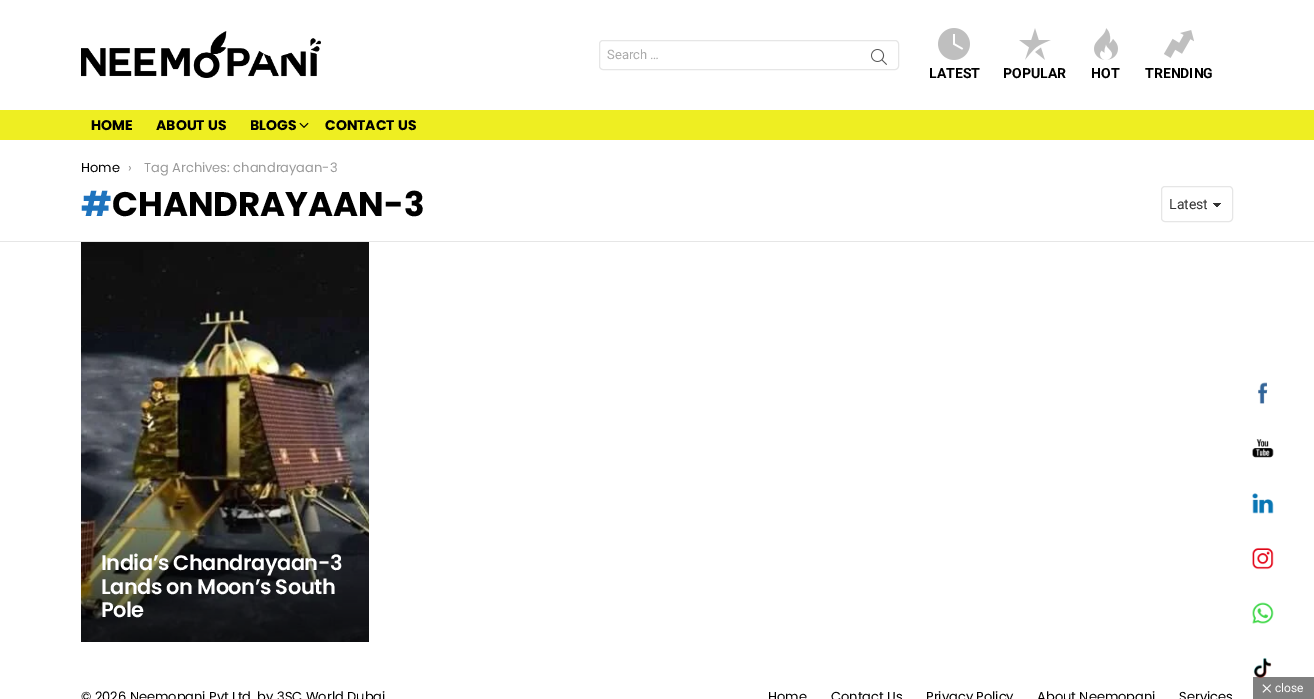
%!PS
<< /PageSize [1314 699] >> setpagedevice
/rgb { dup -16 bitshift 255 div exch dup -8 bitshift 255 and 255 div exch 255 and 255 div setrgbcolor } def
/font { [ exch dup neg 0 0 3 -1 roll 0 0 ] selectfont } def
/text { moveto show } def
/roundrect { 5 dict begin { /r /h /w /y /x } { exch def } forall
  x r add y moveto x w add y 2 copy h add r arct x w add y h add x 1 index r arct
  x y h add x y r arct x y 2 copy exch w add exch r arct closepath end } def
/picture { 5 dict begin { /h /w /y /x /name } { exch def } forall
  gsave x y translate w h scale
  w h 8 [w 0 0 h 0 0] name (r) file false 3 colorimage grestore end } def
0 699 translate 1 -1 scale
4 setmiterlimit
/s1 { /Roboto-Regular 13 font 16#ABABAB rgb } def
/s2 { /Roboto-Bold 14 font 16#000000 rgb } def
/s3 { /Poppins-Bold 14 font 16#000000 rgb } def
/s4 { /Poppins-Regular 13 font 16#000000 rgb } def
/s5 { /Poppins-Regular 13 font 16#999999 rgb } def
/s6 { /Poppins-Bold 34 font 16#1E73BE rgb } def
/s7 { /Poppins-Bold 34 font 16#000000 rgb } def
/s8 { /Roboto-Regular 14 font 16#333333 rgb } def
/s9 { /Roboto-Regular 12 font 16#FFFFFF rgb } def
16#FFFFFF rgb
0 0 1314 699 rectfill
(pic1.raw) 81 31 240 47 picture
16#E6E6E6 rgb
599.5 40.5 299 29 3.5 roundrect stroke
s1
(Search …) 607 59 text
(pic2.raw) 871 49 16 16 picture
(pic3.raw) 938 28 32 32 picture
s2
(LATEST) 929 78 text
(pic4.raw) 1019 28 32 32 picture
(POPULAR) 1003 78 text
(pic5.raw) 1094 28 24 32 picture
(HOT) 1091 78 text
(pic6.raw) 1164 30 30 28 picture
(TRENDING) 1145 78 text
16#EEEE22 rgb
0 110 1314 30 rectfill
s3
(HOME) 91 130 text
(ABOUT US) 156 130 text
(BLOGS) 250 130 text
(pic7.raw) 299 122 10 6 picture
(CONTACT US) 325 130 text
s4
(Home) 81 172 text
s5
(›) 128 172 text
(Tag Archives: chandrayaan-3) 144 172 text
s6
(#) 81 216 text
s7
(CHANDRAYAAN-3) 112 216 text
gsave 1217 203 moveto 1222 203 lineto 1222 207 lineto 1217 207 lineto closepath clip newpath
<< /ShadingType 2 /ColorSpace /DeviceRGB /Coords [1217 203 1222 207] /Extend [true true] /Function << /FunctionType 3 /Domain [0 1] /Functions [<< /FunctionType 2 /Domain [0 1] /C0 [0.2 0.2 0.2] /C1 [0.2 0.2 0.2] /N 1 >> << /FunctionType 2 /Domain [0 1] /C0 [1 1 1] /C1 [1 1 1] /N 1 >>] /Bounds [0.5] /Encode [0 1 0 1] >> >> shfill grestore
gsave 1212 203 moveto 1217 203 lineto 1217 207 lineto 1212 207 lineto closepath clip newpath
<< /ShadingType 2 /ColorSpace /DeviceRGB /Coords [1212 207 1217 203] /Extend [true true] /Function << /FunctionType 3 /Domain [0 1] /Functions [<< /FunctionType 2 /Domain [0 1] /C0 [1 1 1] /C1 [1 1 1] /N 1 >> << /FunctionType 2 /Domain [0 1] /C0 [0.2 0.2 0.2] /C1 [0.2 0.2 0.2] /N 1 >>] /Bounds [0.5] /Encode [0 1 0 1] >> >> shfill grestore
16#E6E6E6 rgb
1161.5 186.5 71 35 3.5 roundrect stroke
s8
(Latest) 1169 209 text
16#E6E6E6 rgb
0 241 1314 1 rectfill
(pic8.raw) 81 242 288 400 picture
/Poppins-SemiBold 21 font
16#FFFFFF rgb
101 570 moveto -0.5 0 (India’s Chandrayaan-3) ashow
101 594 moveto -0.5 0 (Lands on Moon’s South) ashow
101 617 moveto -0.5 0 (Pole) ashow
s4
(© 2026 Neemopani Pvt Ltd. by 3SC World Dubai) 81 701 text
(Home) 768 701 text
(Contact Us) 831 701 text
(Privacy Policy) 926 701 text
(About Neemopani) 1037 701 text
(Services) 1179 701 text
(pic9.raw) 1258 382 10 22 picture
(pic10.raw) 1252 439 22 19 picture
(pic11.raw) 1252 493 22 21 picture
(pic12.raw) 1252 547 22 23 picture
(pic13.raw) 1252 602 22 22 picture
16#808080 rgb
1253 677 61 22 rectfill
(pic14.raw) 1253 657 19 21 picture
16#FFFFFF rgb
1263.5 684.5 moveto 1271 692 lineto 1270.5 692.5 lineto 1262.5 685 lineto closepath fill
s9
(close) 1275 692 text
1270.5 684.5 moveto 1271 685 lineto 1263.5 692.5 lineto 1262.5 692 lineto closepath fill
showpage
